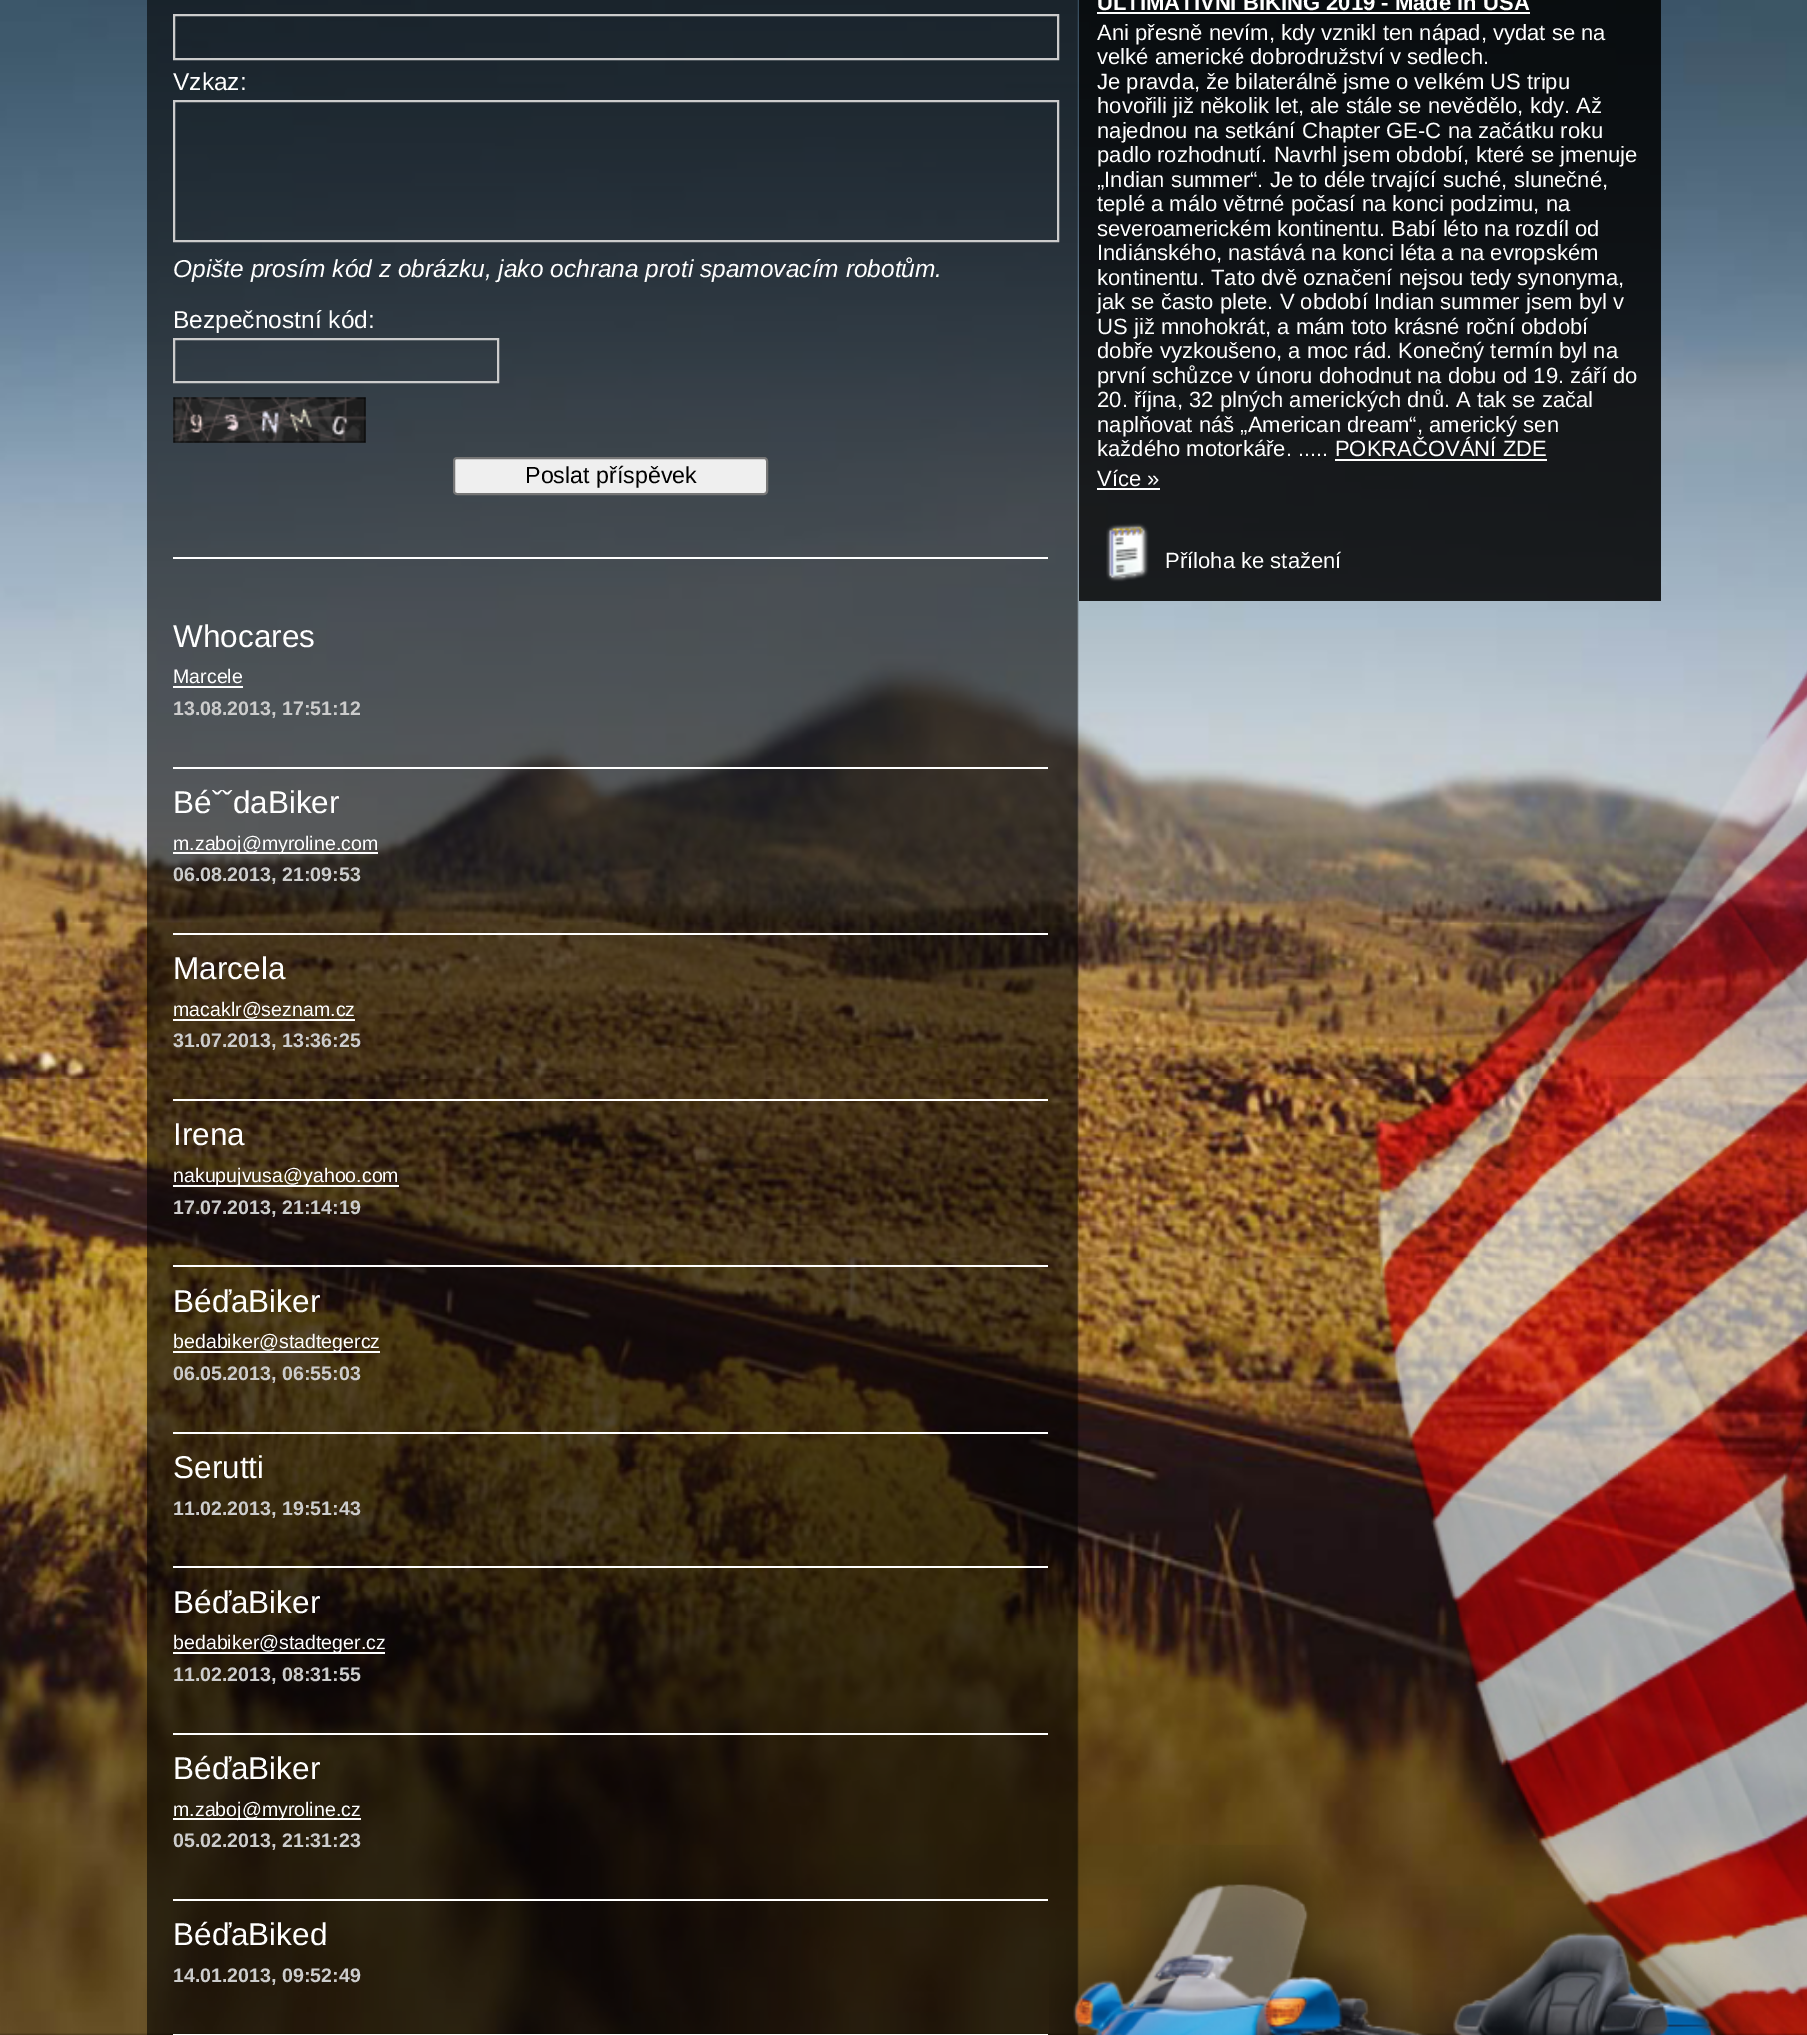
%!PS
<< /PageSize [1807 2035] /PageUsesTransparency true >> setpagedevice
/rgb { dup -16 bitshift 255 div exch dup -8 bitshift 255 and 255 div exch 255 and 255 div setrgbcolor } def
/font { [ exch dup neg 0 0 3 -1 roll 0 0 ] selectfont } def
/text { moveto show } def
/alpha { dup .setfillconstantalpha .setstrokeconstantalpha } def
/roundrect { 5 dict begin { /r /h /w /y /x } { exch def } forall
  x r add y moveto x w add y 2 copy h add r arct x w add y h add x 1 index r arct
  x y h add x y r arct x y 2 copy exch w add exch r arct closepath end } def
/picture { 5 dict begin { /h /w /y /x /name } { exch def } forall
  gsave x y translate w h scale
  w h 8 [w 0 0 h 0 0] name (r) file false 3 colorimage grestore end } def
0 .pushpdf14devicefilter
0 2035 translate 1 -1 scale
4 setmiterlimit
/s1 { /LiberationSans-Regular 24.5 font 16#FFFFFF rgb } def
/s2 { /LiberationSans-Italic 24.5 font 16#FFFFFF rgb } def
/s3 { /LiberationSans-Regular 23.25 font 16#000000 rgb } def
/s4 { /LiberationSans-Regular 31.5 font 16#FFFFFF rgb } def
/s5 { /LiberationSans-Regular 19.6 font 16#FFFFFF rgb } def
/s6 { /LiberationSans-Bold 19.6 font 16#CCCCCC rgb } def
/s7 { /LiberationSans-Bold 22.05 font 16#FFFFFF rgb } def
/s8 { /LiberationSans-Regular 22.05 font 16#FFFFFF rgb } def
16#FFFFFF rgb
0 0 1807 2035 rectfill
(pic1.raw) 0 2033 1807 2 picture
(pic2.raw) 0 0 1807 2035 picture
(pic3.raw) 147 0 932 2035 picture
173 557 875 2 rectfill
16#CCCCCC rgb
2 setlinewidth
174 15 884 44 rectstroke
s1
(Vzkaz:) 173 90 text
16#CCCCCC rgb
174 101 884 140 rectstroke
s2
(Opište prosím kód z obrázku, jako ochrana proti spamovacím robotům.) 173 277 text
s1
(Bezpečnostní kód:) 173 328 text
16#CCCCCC rgb
174 339 324 43 rectstroke
(pic4.raw) 173 397 193 46 picture
16#EFEFEF rgb
454 458 313 36 3 roundrect gsave fill grestore
16#767676 rgb
stroke
s3
(Poslat příspěvek) 525 483 text
16#FFFFFF rgb
173 767 875 2 rectfill
s4
(Whocares) 173 647 text
s5
(Marcele) 173 683 text
173 686 70 2 rectfill
s6
(13.08.2013, 17:51:12) 173 715 text
16#FFFFFF rgb
173 933 875 2 rectfill
s4
(BéˇˇdaBiker) 173 813 text
173 852 205 2 rectfill
s5
(m.zaboj@myroline.com) 173 850 text
s6
(06.08.2013, 21:09:53) 173 881 text
16#FFFFFF rgb
173 1099 875 2 rectfill
s4
(Marcela) 173 979 text
s5
(macaklr@seznam.cz) 173 1016 text
173 1019 182 2 rectfill
s6
(31.07.2013, 13:36:25) 173 1047 text
16#FFFFFF rgb
173 1265 875 2 rectfill
s4
(Irena) 173 1145 text
173 1185 226 2 rectfill
s5
(nakupujvusa@yahoo.com) 173 1182 text
s6
(17.07.2013, 21:14:19) 173 1214 text
16#FFFFFF rgb
173 1432 875 2 rectfill
s4
(BéďaBiker) 173 1312 text
173 1351 207 2 rectfill
s5
(bedabiker@stadtegercz) 173 1348 text
s6
(06.05.2013, 06:55:03) 173 1380 text
16#FFFFFF rgb
173 1566 875 2 rectfill
s4
(Serutti) 173 1478 text
s6
(11.02.2013, 19:51:43) 173 1515 text
16#FFFFFF rgb
173 1733 875 2 rectfill
s4
(BéďaBiker) 173 1613 text
173 1652 212 2 rectfill
s5
(bedabiker@stadteger.cz) 173 1649 text
s6
(11.02.2013, 08:31:55) 173 1681 text
16#FFFFFF rgb
173 1899 875 2 rectfill
s4
(BéďaBiker) 173 1779 text
173 1818 188 2 rectfill
s5
(m.zaboj@myroline.cz) 173 1816 text
s6
(05.02.2013, 21:31:23) 173 1847 text
16#FFFFFF rgb
173 2034 875 1 rectfill
s4
(BéďaBiked) 173 1945 text
s6
(14.01.2013, 09:52:49) 173 1982 text
0.85 alpha
16#000000 rgb
1079 0 582 601 rectfill
1 alpha
s7
(ULTIMATIVNÍ BIKING 2019 - Made in USA) 1097 10 text
1097 12 433 2 rectfill
s8
(Ani přesně nevím, kdy vznikl ten nápad, vydat se na) 1097 40 text
(velké americké dobrodružství v sedlech.) 1097 64 text
(Je pravda, že bilaterálně jsme o velkém US tripu) 1097 89 text
(hovořili již několik let, ale stále se nevědělo, kdy. Až) 1097 113 text
(najednou na setkání Chapter GE-C na začátku roku) 1097 138 text
(padlo rozhodnutí. Navrhl jsem období, které se jmenuje) 1097 162 text
(„Indian summer“. Je to déle trvající suché, slunečné,) 1097 187 text
(teplé a málo větrné počasí na konci podzimu, na) 1097 211 text
(severoamerickém kontinentu. Babí léto na rozdíl od) 1097 236 text
(Indiánského, nastává na konci léta a na evropském) 1097 260 text
(kontinentu. Tato dvě označení nejsou tedy synonyma,) 1097 285 text
(jak se často plete. V období Indian summer jsem byl v) 1097 309 text
(US již mnohokrát, a mám toto krásné roční období) 1097 334 text
(dobře vyzkoušeno, a moc rád. Konečný termín byl na) 1097 358 text
(první schůzce v únoru dohodnut na dobu od 19. září do) 1097 383 text
(20. října, 32 plných amerických dnů. A tak se začal) 1097 407 text
(naplňovat náš „American dream“, americký sen) 1097 432 text
(každého motorkáře. ..... POKRAČOVÁNÍ ZDE) 1097 456 text
1335 459 212 2 rectfill
(Více ») 1097 486 text
1097 488 63 2 rectfill
(pic5.raw) 1106 523 43 59 picture
(Příloha ke stažení) 1165 568 text
(pic6.raw) 1049 1845 718 190 picture
.poppdf14devicefilter showpage
